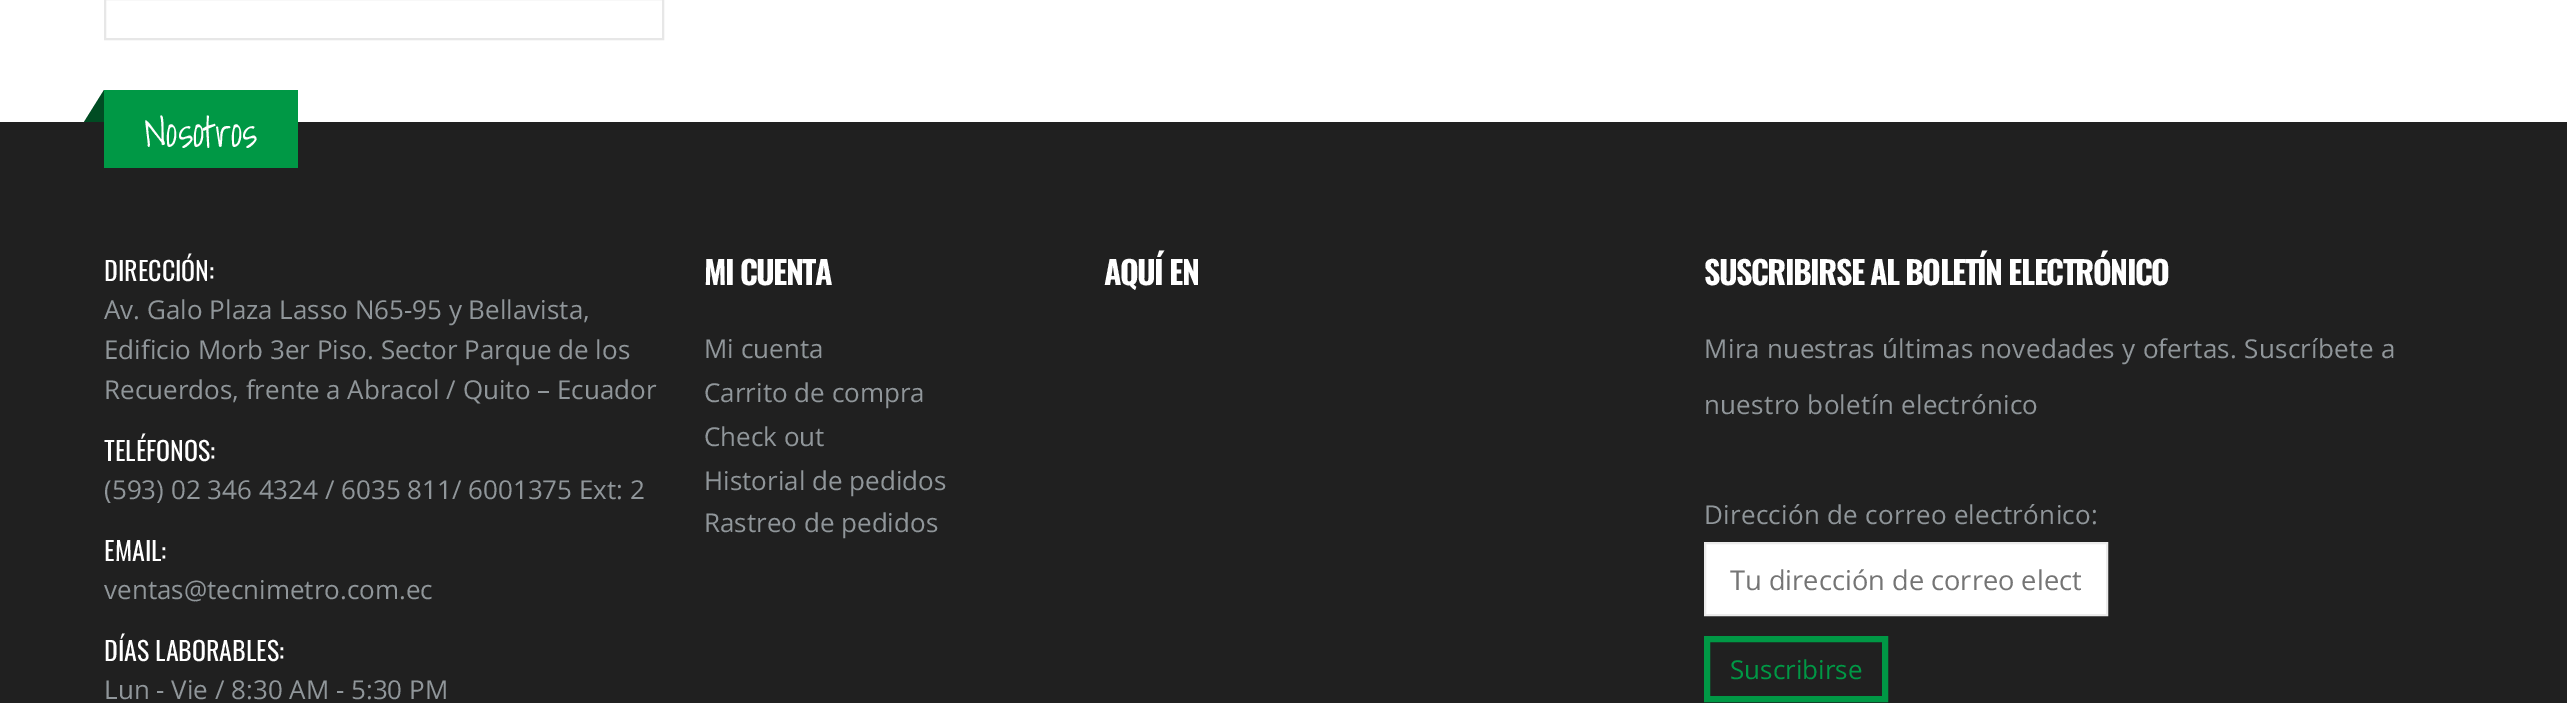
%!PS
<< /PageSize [2567 703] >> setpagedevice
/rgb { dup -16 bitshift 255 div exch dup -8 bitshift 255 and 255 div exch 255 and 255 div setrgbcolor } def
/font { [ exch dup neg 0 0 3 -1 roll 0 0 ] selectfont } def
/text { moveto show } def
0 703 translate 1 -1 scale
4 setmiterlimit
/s1 { /ShadowsIntoLight-Regular 41.5 font 16#FFFFFF rgb } def
/s2 { /Oswald-Regular 26 font 16#FFFFFF rgb } def
/s3 { /OpenSans-Regular 26 font 16#90969A rgb } def
/s4 { /OpenSans-Regular 27.25 font 16#757575 rgb } def
/s5 { /OpenSans-Regular 26 font 16#009845 rgb } def
16#FFFFFF rgb
0 0 2567 703 rectfill
16#E7E7E7 rgb
2 setlinewidth
105 -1 558 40 rectstroke
16#202020 rgb
0 122 2567 581 rectfill
16#009845 rgb
104 90 194 78 rectfill
16#004C23 rgb
104 90 moveto 104 122 lineto 84 122 lineto closepath fill
s1
(Nosotros) 144 147 text
s2
(DIRECCIÓN:) 104 281 text
s3
(Av. Galo Plaza Lasso N65-95 y Bellavista,) 104 319 text
(Edificio Morb 3er Piso. Sector Parque de los) 104 359 text
(Recuerdos, frente a Abracol / Quito – Ecuador) 104 399 text
s2
(TELÉFONOS:) 104 461 text
s3
(\(593\) 02 346 4324 / 6035 811/ 6001375 Ext: 2) 104 499 text
s2
(EMAIL:) 104 561 text
s3
(ventas@tecnimetro.com.ec) 104 599 text
s2
(DÍAS LABORABLES:) 104 661 text
s3
(Lun - Vie / 8:30 AM - 5:30 PM) 104 699 text
/Oswald-Bold 32 font
16#FFFFFF rgb
704 285 moveto -1.6 0 (MI CUENTA) ashow
s3
(Mi cuenta) 704 358 text
(Carrito de compra) 704 402 text
(Check out) 704 446 text
(Historial de pedidos) 704 490 text
(Rastreo de pedidos) 704 532 text
/Oswald-Bold 32 font
16#FFFFFF rgb
1104 285 moveto -1.6 0 (AQUÍ EN) ashow
1704 285 moveto -1.6 0 (SUSCRIBIRSE AL BOLETÍN ELECTRÓNICO) ashow
/OpenSans-Regular 26 font
16#90969A rgb
1704 358 moveto 0.28 0 (Mira nuestras últimas novedades y ofertas. Suscríbete a) ashow
1704 414 moveto 0.28 0 (nuestro boletín electrónico) ashow
1704 524 moveto 0.28 0 (Dirección de correo electrónico:) ashow
16#FFFFFF rgb
1705 543 moveto 2107 543 lineto 2107 615 lineto 1705 615 lineto closepath gsave fill grestore
16#EBEBEB rgb
stroke
s4
(Tu dirección de correo elect) 1730 590 text
16#009845 rgb
6 setlinewidth
1707 639 178 60 rectstroke
s5
(Suscribirse) 1730 679 text
showpage
